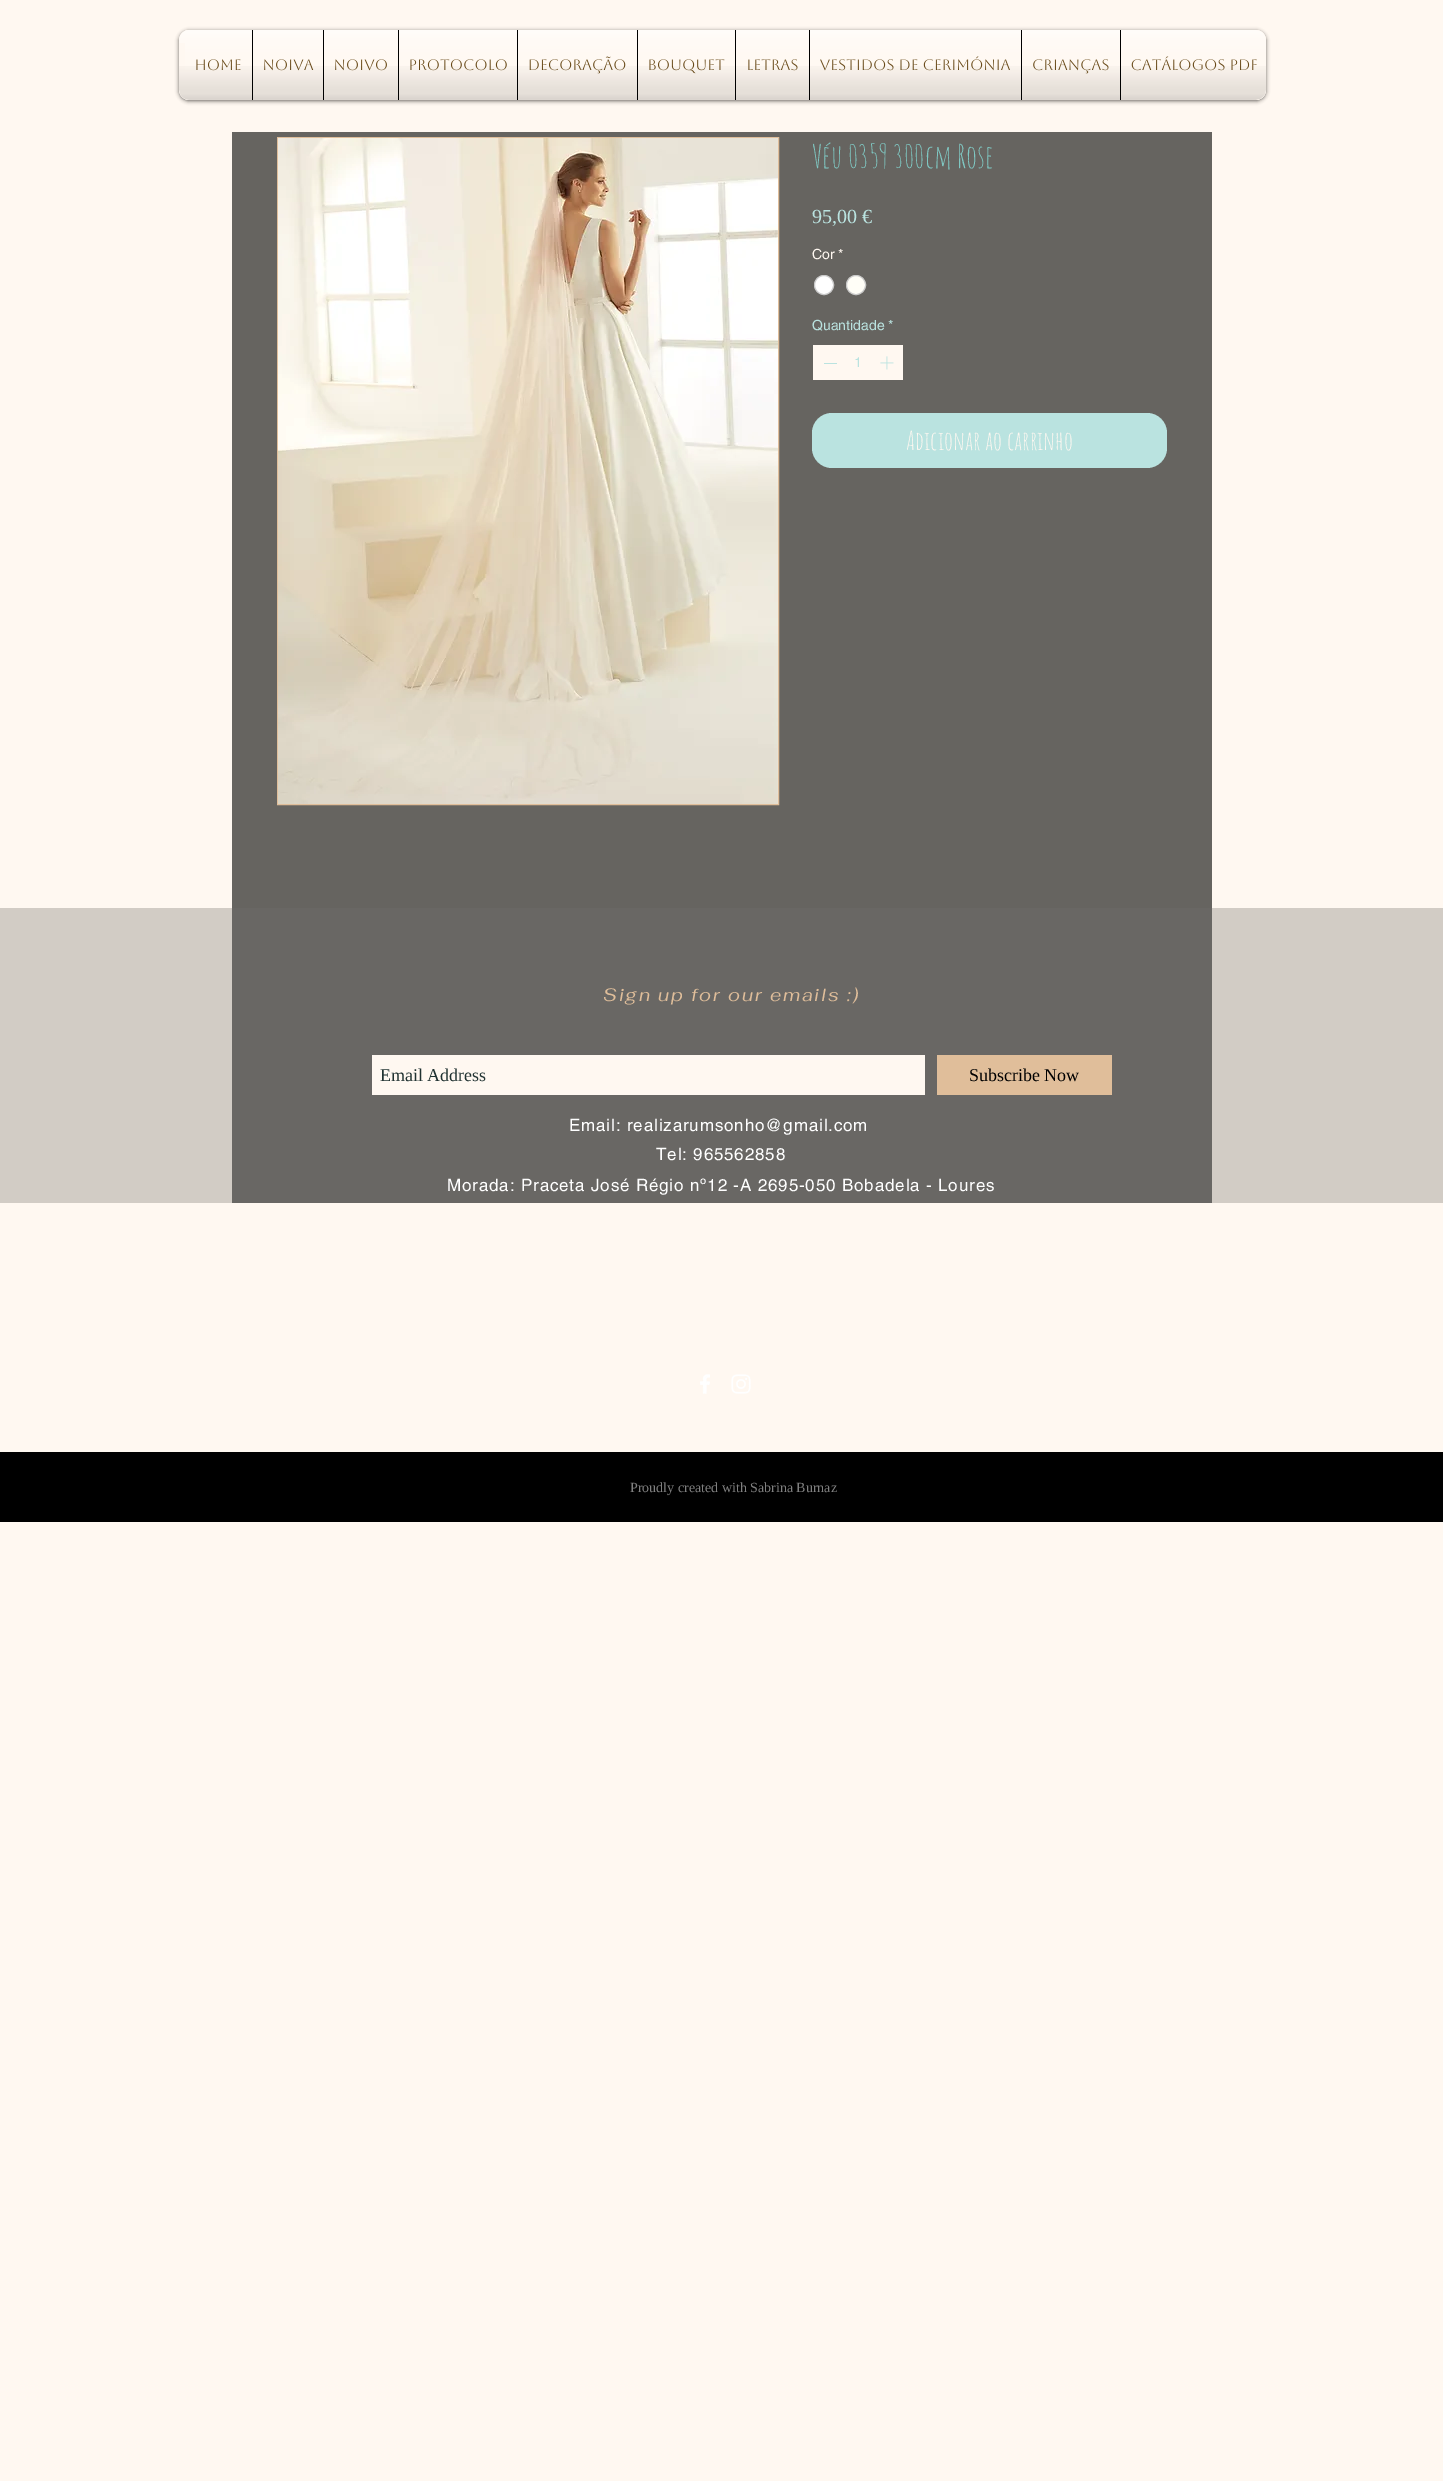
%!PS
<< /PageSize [1443 2481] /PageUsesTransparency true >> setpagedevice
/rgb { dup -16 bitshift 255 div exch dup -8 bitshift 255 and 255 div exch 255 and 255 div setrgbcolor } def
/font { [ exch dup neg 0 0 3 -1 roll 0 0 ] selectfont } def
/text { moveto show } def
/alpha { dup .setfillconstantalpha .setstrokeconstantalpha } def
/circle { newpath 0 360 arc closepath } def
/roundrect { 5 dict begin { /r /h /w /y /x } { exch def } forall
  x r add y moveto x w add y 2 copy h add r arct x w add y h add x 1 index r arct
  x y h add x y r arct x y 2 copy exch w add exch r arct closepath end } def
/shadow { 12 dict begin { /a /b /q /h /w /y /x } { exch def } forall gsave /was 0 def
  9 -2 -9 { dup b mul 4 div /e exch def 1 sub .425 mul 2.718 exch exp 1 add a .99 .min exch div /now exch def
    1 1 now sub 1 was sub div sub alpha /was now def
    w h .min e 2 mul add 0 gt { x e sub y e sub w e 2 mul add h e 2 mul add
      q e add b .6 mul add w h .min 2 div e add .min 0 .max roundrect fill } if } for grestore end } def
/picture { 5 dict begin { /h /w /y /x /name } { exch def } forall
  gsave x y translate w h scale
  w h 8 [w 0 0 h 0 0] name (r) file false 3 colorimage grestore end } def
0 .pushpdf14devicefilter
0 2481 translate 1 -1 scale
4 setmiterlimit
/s1 { /Aboreto-Regular 15 font 16#5C3B05 rgb } def
/s2 { /AmaticSC-Regular 32 font 16#7FC7C2 rgb } def
/s3 { /LiberationSerif-Regular 20 font 16#BAE3E0 rgb } def
/s4 { /helvetica-Regular 14 font 16#FFF8F1 rgb } def
/s5 { /helvetica-Regular 14 font 16#BAE3E0 rgb } def
/s6 { /AmaticSC-Regular 26 font 16#FFF8F1 rgb } def
/s7 { /LiberationSerif-Regular 18 font 16#203231 rgb } def
/s8 { /LiberationSerif-Regular 18 font 16#000000 rgb } def
/s9 { /LiberationSerif-Regular 14 font 16#808080 rgb } def
16#FFF8F1 rgb
0 0 1443 2481 rectfill
16#000000 rgb
179 31 1087 70 10 2 0.6 shadow
16#FFF8F1 rgb
179 30 1087 70 10 roundrect fill
(pic1.raw) 179 30 1087 13 picture
(pic2.raw) 179 66 1087 34 picture
gsave
179 30 1087 70 10 roundrect clip newpath
185 30 67 70 rectfill
grestore
s1
(Home) 195 70 text
(pic3.raw) 185 30 67 40 picture
(pic4.raw) 185 66 67 34 picture
16#FFF8F1 rgb
253 30 70 70 rectfill
16#000000 rgb
252 30 1 70 rectfill
s1
(Noiva) 263 70 text
(pic5.raw) 253 30 70 40 picture
(pic6.raw) 253 66 70 34 picture
16#FFF8F1 rgb
324 30 74 70 rectfill
16#000000 rgb
323 30 1 70 rectfill
s1
(Noivo) 334 70 text
(pic7.raw) 324 30 74 40 picture
(pic8.raw) 324 66 74 34 picture
16#FFF8F1 rgb
399 30 118 70 rectfill
16#000000 rgb
398 30 1 70 rectfill
s1
(Protocolo) 409 70 text
(pic9.raw) 399 30 118 40 picture
(pic10.raw) 399 66 118 34 picture
16#FFF8F1 rgb
518 30 119 70 rectfill
16#000000 rgb
517 30 1 70 rectfill
s1
(Decoração) 528 70 text
(pic11.raw) 518 30 119 43 picture
(pic12.raw) 518 66 119 34 picture
16#FFF8F1 rgb
638 30 97 70 rectfill
16#000000 rgb
637 30 1 70 rectfill
s1
(Bouquet) 648 70 text
(pic13.raw) 638 30 97 43 picture
(pic14.raw) 638 66 97 34 picture
16#FFF8F1 rgb
736 30 73 70 rectfill
16#000000 rgb
735 30 1 70 rectfill
s1
(Letras) 746 70 text
(pic15.raw) 736 30 73 40 picture
(pic16.raw) 736 66 73 34 picture
16#FFF8F1 rgb
810 30 211 70 rectfill
16#000000 rgb
809 30 1 70 rectfill
s1
(Vestidos de Cerimónia) 820 70 text
(pic17.raw) 810 30 211 40 picture
(pic18.raw) 810 66 211 34 picture
16#FFF8F1 rgb
1022 30 98 70 rectfill
16#000000 rgb
1021 30 1 70 rectfill
s1
(Crianças) 1032 70 text
(pic19.raw) 1022 30 98 43 picture
(pic20.raw) 1022 66 98 34 picture
16#FFF8F1 rgb
1120 30 moveto 1256 30 lineto 1261.5 30 1266 34.5 1266 40 curveto 1266 90 lineto 1266 95.5 1261.5 100 1256 100 curveto 1120 100 lineto closepath fill
16#000000 rgb
1120 30 1 70 rectfill
s1
(Catálogos PDF) 1131 70 text
(pic21.raw) 1121 30 145 40 picture
(pic22.raw) 1121 66 145 34 picture
16#666460 rgb
232 132 980 776 rectfill
16#E0BE9A rgb
277.5 137.5 501 667 rectstroke
(pic23.raw) 278 138 500 666 picture
s2
(Véu 0359 300cm Rose) 812 168 text
s3
(95,00 €) 812 223 text
s4
(Cor *) 812 259 text
16#FFFFFF rgb
824 285 9.5 circle gsave fill grestore
16#C9C9C9 rgb
stroke
16#FFFEF7 rgb
856 285 9.5 circle gsave fill grestore
16#C9C9C9 rgb
stroke
s5
(Quantidade *) 812 330 text
16#FFF8F1 rgb
813 345 90 35 rectfill
16#BAE3E0 rgb
824 363 13 1 rectfill
(1) 854 367 text
(pic24.raw) 880 356 14 14 picture
812 413 355 55 20 roundrect fill
s6
(Adicionar ao carrinho) 906 450 text
16#D2CCC5 rgb
0 908 1443 295 rectfill
16#696764 rgb
232 908 980 295 rectfill
/Fahkwang-Italic 18 font
16#E0BE9A rgb
603 1001 moveto 1.8 0 (Sign up for our emails :\)) ashow
16#FFF8F1 rgb
372 1055 553 40 rectfill
s7
(Email Address) 380 1081 text
16#E0BE9A rgb
937 1055 175 40 rectfill
s8
(Subscribe Now) 969 1081 text
/helvetica-Regular 17 font
16#FFFFFF rgb
569 1131 moveto 0.85 0 (Email: realizarumsonho@gmail.com) ashow
656 1160 moveto 0.85 0 (Tel: 965562858) ashow
447 1191 moveto 0.85 0 (Morada: Praceta José Régio nº12 -A 2695-050 Bobadela - Loures) ashow
(pic25.raw) 700 1374 10 20 picture
(pic26.raw) 731 1374 20 20 picture
16#000000 rgb
0 1452 1443 70 rectfill
s9
(Proudly created with Sabrina Burnaz) 630 1492 text
.poppdf14devicefilter showpage
